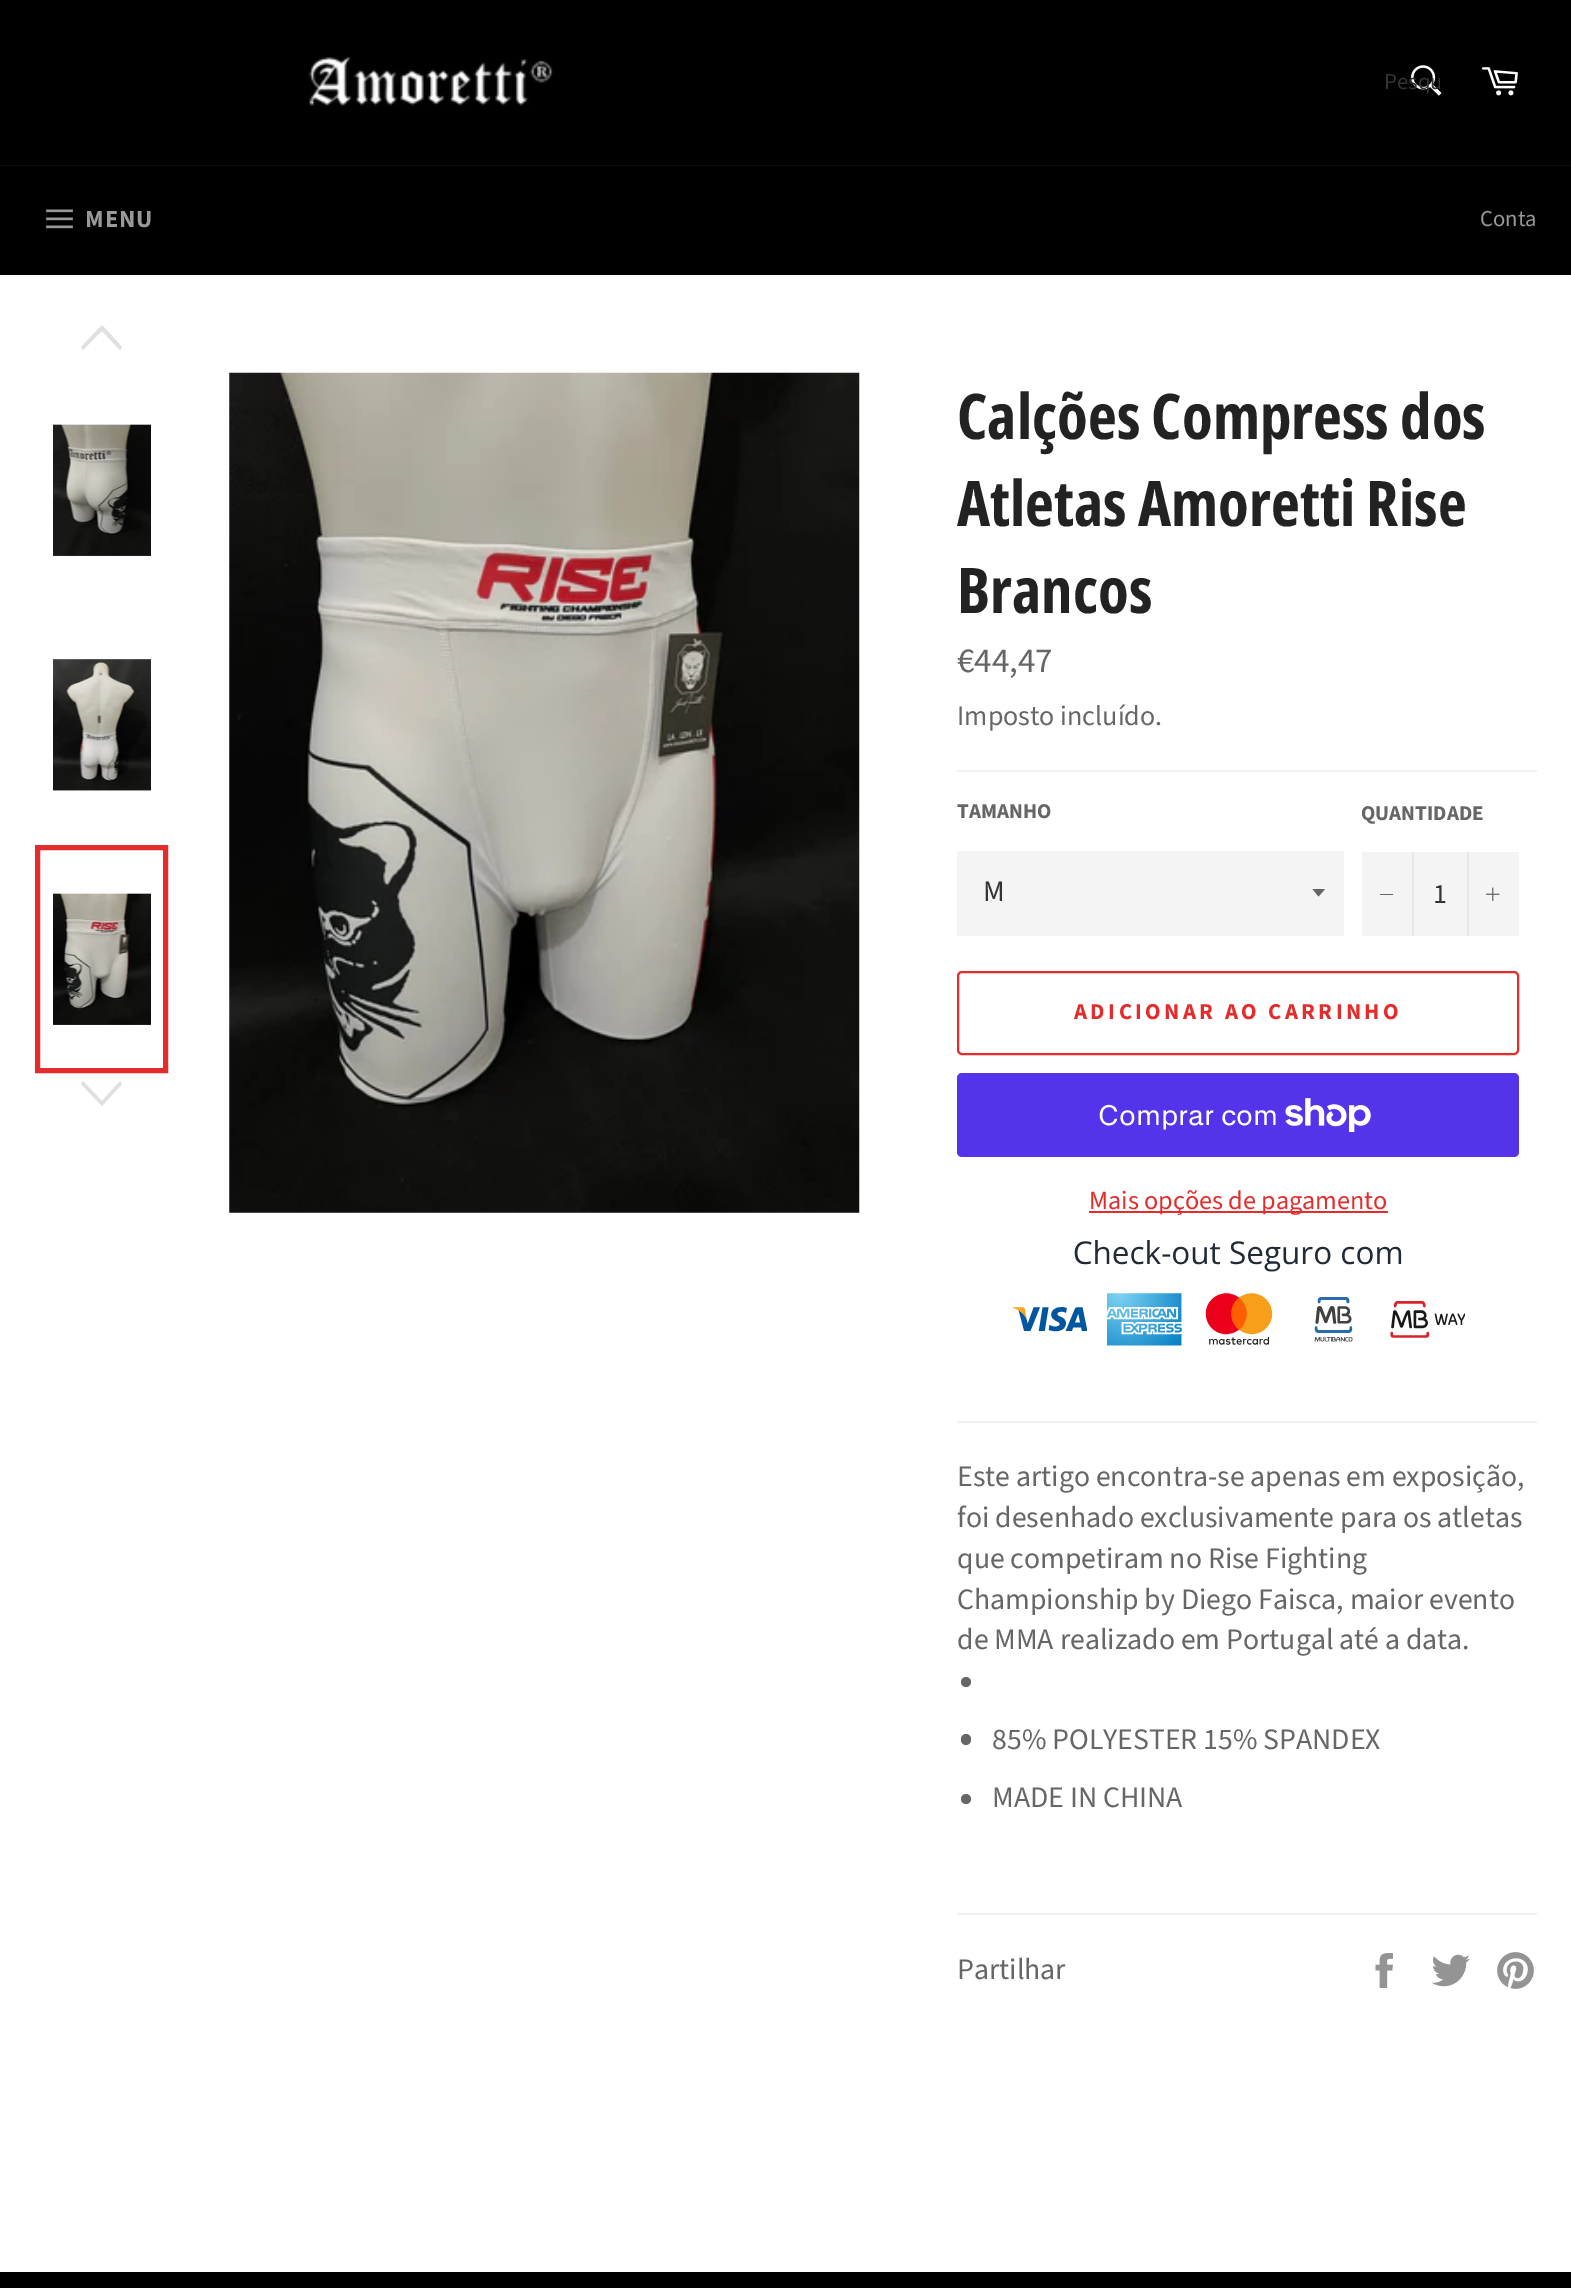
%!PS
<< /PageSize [1571 2288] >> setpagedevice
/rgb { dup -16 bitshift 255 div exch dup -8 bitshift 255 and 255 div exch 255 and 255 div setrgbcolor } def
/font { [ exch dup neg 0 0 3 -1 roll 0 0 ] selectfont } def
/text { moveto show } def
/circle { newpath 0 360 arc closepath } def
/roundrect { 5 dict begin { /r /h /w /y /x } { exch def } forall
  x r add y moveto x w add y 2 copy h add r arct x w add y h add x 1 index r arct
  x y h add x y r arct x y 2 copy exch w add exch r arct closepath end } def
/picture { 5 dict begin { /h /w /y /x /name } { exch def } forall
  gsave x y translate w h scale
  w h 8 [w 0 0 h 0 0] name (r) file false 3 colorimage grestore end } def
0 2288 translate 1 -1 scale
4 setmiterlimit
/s1 { /SourceSansPro-Regular 22.75 font 16#333333 rgb } def
/s2 { /SourceSansPro-Regular 22.75 font 16#999999 rgb } def
/s3 { /OpenSansCondensed-Bold 63 font 16#222222 rgb } def
/s4 { /SourceSansPro-Regular 35 font 16#666666 rgb } def
/s5 { /SourceSansPro-Regular 28 font 16#666666 rgb } def
/s6 { /SourceSansPro-Bold 21 font 16#666666 rgb } def
/s7 { /SourceSansPro-Regular 29.75 font 16#333333 rgb } def
/s8 { /SourceSansPro-Regular 28 font 16#333333 rgb } def
/s9 { /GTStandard-Regular 28 font 16#FFFFFF rgb } def
/s10 { /SourceSansPro-Regular 26.25 font 16#E32C2B rgb } def
/s11 { /SourceSansPro-Regular 29.75 font 16#666666 rgb } def
16#000000 rgb
0 0 1571 2288 rectfill
(pic1.raw) 309 56 245 50 picture
(pic2.raw) 1411 65 31 31 picture
gsave
1384 67 56 31 rectclip
s1
(Pesqu) 1384 89 text
grestore
(pic3.raw) 1481 67 37 29 picture
16#0D0D0D rgb
0 165 1571 1 rectfill
(pic4.raw) 46 209 27 20 picture
/SourceSansPro-Bold 24.5 font
16#999999 rgb
85 227 moveto 1 0 (MENU) ashow
s2
(Conta) 1480 226 text
16#FFFFFF rgb
0 275 1571 1997 rectfill
16#E0E0E0 rgb
120 350 moveto 122 347 lineto 102 325 lineto 81 347 lineto 83 350 lineto 102 331 lineto closepath fill
(pic5.raw) 53 424 98 132 picture
(pic6.raw) 53 659 98 132 picture
(pic7.raw) 53 893 98 132 picture
16#E32C2B rgb
5 setlinewidth
37.5 847.5 128 223 rectstroke
16#E0E0E0 rgb
120 1081 moveto 122 1084 lineto 102 1106 lineto 81 1084 lineto 83 1081 lineto 102 1101 lineto closepath fill
(pic8.raw) 229 372 631 841 picture
s3
(Calções Compress dos) 957 439 text
(Atletas Amoretti Rise) 957 526 text
(Brancos) 957 613 text
s4
(€44,47) 957 672 text
s5
(Imposto incluído.) 957 725 text
16#F0F0F0 rgb
957 770 580 2 rectfill
s6
(TAMANHO) 957 818 text
16#F4F4F4 rgb
957 851 387 85 rectfill
16#666666 rgb
1312.5 889 moveto 1318.5 896.5 lineto 1325 889 lineto closepath fill
s7
(M) 983 901 text
s6
(QUANTIDADE) 1361 820 text
16#F4F4F4 rgb
1362 852 157 84 rectfill
16#E7E7E7 rgb
1412 852 2 84 rectfill
16#666666 rgb
1380 894 13 1 rectfill
s8
(1) 1433 903 text
16#E7E7E7 rgb
1467 852 2 84 rectfill
(pic9.raw) 1486 887 14 14 picture
16#E32C2B rgb
2 setlinewidth
958 972 560 82 4 roundrect stroke
/SourceSansPro-Bold 22.75 font
1074 1019 moveto 3.4 0 (ADICIONAR AO CARRINHO) ashow
16#5433EB rgb
957 1073 562 84 5 roundrect fill
s9
(Comprar com) 1098 1125 text
(pic10.raw) 1285 1098 86 34 picture
16#E32C2B rgb
1089 1211 299 2 rectfill
s10
(Mais opções de pagamento) 1089 1209 text
(pic11.raw) 1012 1240 453 106 picture
16#F0F0F0 rgb
957 1421 580 2 rectfill
s11
(Este artigo encontra-se apenas em exposição,) 957 1486 text
(foi desenhado exclusivamente para os atletas) 957 1527 text
(que competiram no Rise Fighting) 957 1568 text
(Championship by Diego Faisca, maior evento) 957 1609 text
(de MMA realizado em Portugal até a data.) 957 1649 text
966 1682 5 circle fill
961 1734 10 11 5 roundrect fill
(85% POLYESTER 15% SPANDEX) 992 1749 text
966 1799 5 circle fill
(MADE IN CHINA) 992 1807 text
16#F0F0F0 rgb
957 1913 580 2 rectfill
s11
(Partilhar) 957 1979 text
(pic12.raw) 1375 1953 18 35 picture
(pic13.raw) 1431 1954 39 33 picture
(pic14.raw) 1497 1952 37 37 picture
showpage
